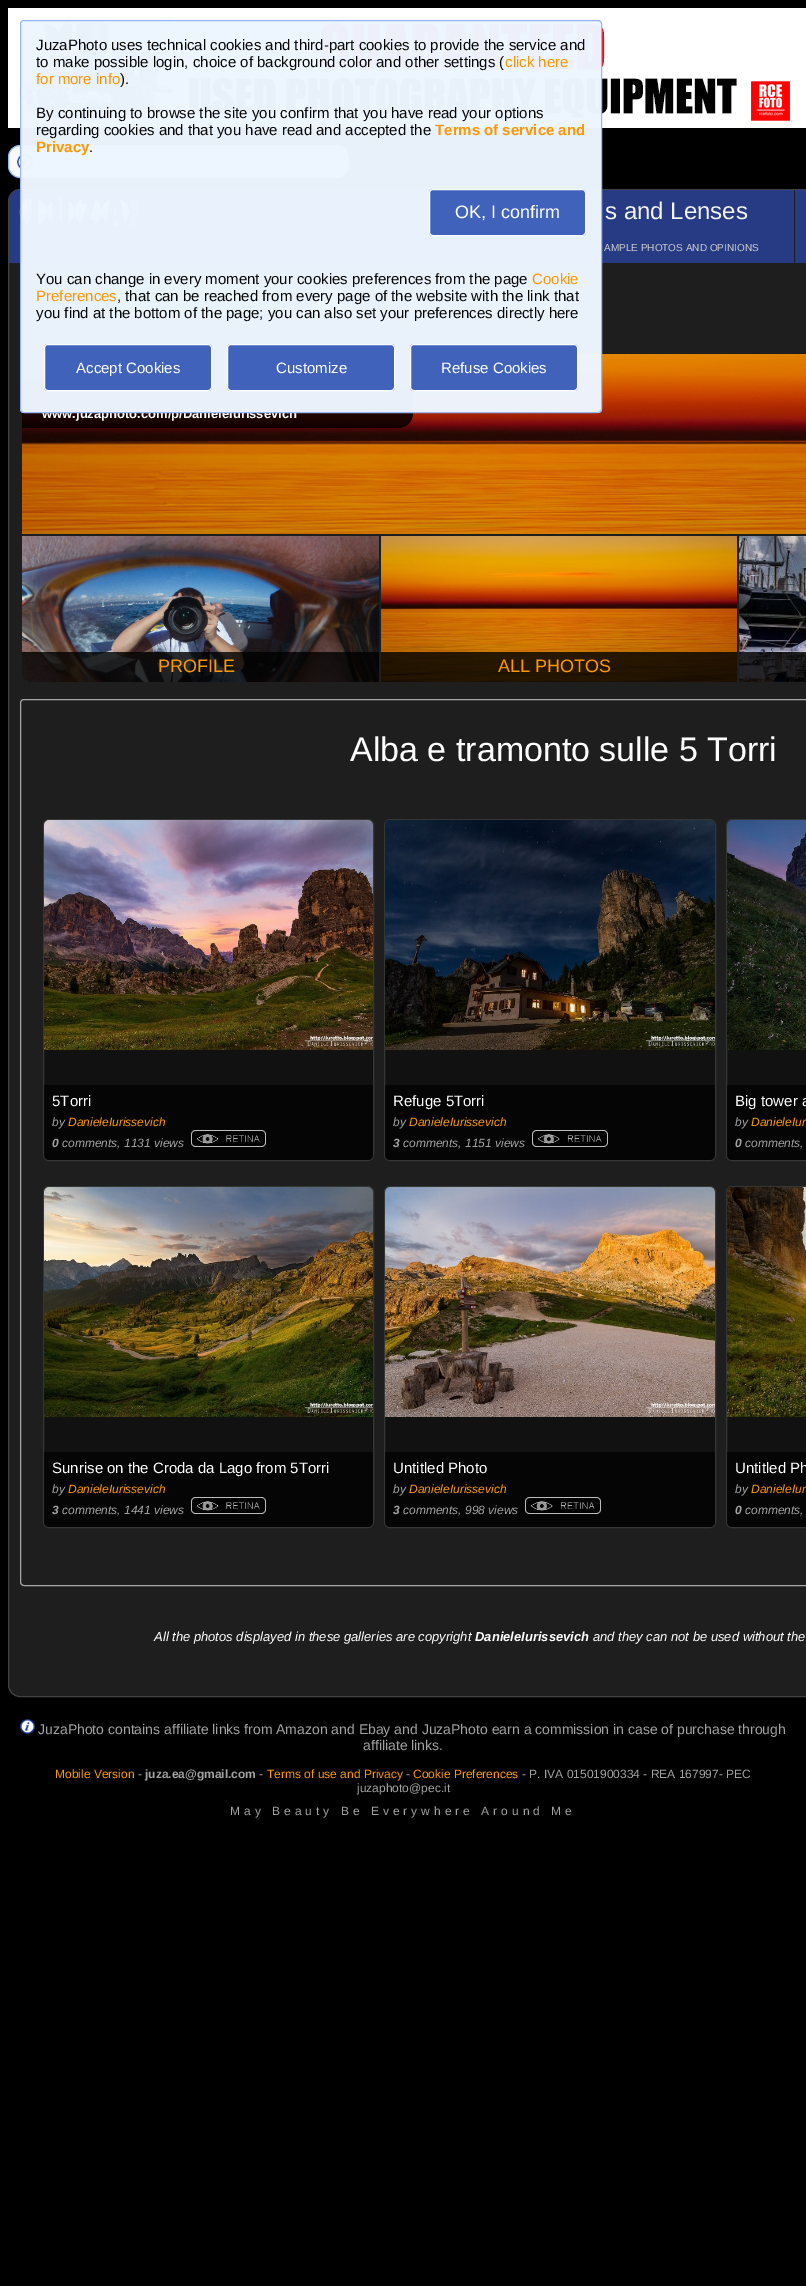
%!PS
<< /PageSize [806 2286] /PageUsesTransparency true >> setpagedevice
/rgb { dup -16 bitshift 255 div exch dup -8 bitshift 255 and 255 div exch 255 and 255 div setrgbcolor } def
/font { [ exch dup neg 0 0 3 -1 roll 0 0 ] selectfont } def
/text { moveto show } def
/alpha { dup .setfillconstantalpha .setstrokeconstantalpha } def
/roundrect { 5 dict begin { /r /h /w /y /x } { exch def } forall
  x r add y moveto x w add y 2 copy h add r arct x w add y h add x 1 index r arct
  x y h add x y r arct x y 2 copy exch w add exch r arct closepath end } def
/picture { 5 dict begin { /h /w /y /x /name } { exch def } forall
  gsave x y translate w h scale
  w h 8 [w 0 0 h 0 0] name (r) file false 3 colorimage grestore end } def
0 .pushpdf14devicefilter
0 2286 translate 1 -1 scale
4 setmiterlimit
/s1 { /LiberationSans-Bold 13 font 16#FFFFFF rgb } def
/s2 { /LiberationSans-Regular 15 font 16#050505 rgb } def
/s3 { /LiberationSans-Regular 15 font 16#FB9700 rgb } def
/s4 { /LiberationSans-Bold 15 font 16#FB9700 rgb } def
/s5 { /LiberationSans-Regular 18 font 16#FFFFFF rgb } def
/s6 { /LiberationSans-Regular 15 font 16#FFFFFF rgb } def
/s7 { /LiberationSans-Regular 24 font 16#F4F4F4 rgb } def
/s8 { /LiberationSans-Regular 10 font 16#C9C9C9 rgb } def
/s9 { /LiberationSans-Regular 18 font 16#FB9700 rgb } def
/s10 { /LiberationSans-Regular 34 font 16#FFFFFF rgb } def
/s11 { /LiberationSans-Italic 12 font 16#A2A2A2 rgb } def
/s12 { /LiberationSans-Italic 12 font 16#FB9700 rgb } def
/s13 { /LiberationSans-BoldItalic 12 font 16#A2A2A2 rgb } def
/s14 { /LiberationSans-Italic 13 font 16#FFFFFF rgb } def
/s15 { /LiberationSans-BoldItalic 13 font 16#FFFFFF rgb } def
/s16 { /LiberationSans-Regular 14 font 16#A2A2A2 rgb } def
/s17 { /LiberationSans-Regular 12 font 16#FB9700 rgb } def
/s18 { /LiberationSans-Regular 12 font 16#A2A2A2 rgb } def
/s19 { /LiberationSans-Bold 12 font 16#A2A2A2 rgb } def
16#000000 rgb
0 0 806 2286 rectfill
(pic1.raw) 8 8 798 120 picture
16#1E1E1E rgb
8.5 189.5 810 1507 11.5 roundrect gsave fill grestore
16#424242 rgb
stroke
0.95 alpha
16#273C89 rgb
20 190 moveto 151 190 lineto 151 263 lineto 9 263 lineto 9 201 lineto 9 195 14 190 20 190 curveto closepath fill
1 alpha
(pic2.raw) 19 198 119 28 picture
16#273B84 rgb
152 190 321 73 rectfill
474 190 320 73 rectfill
16#292929 rgb
29 284 moveto 111 284 lineto 111 314 lineto 29 314 lineto 25.5 314 23 311.5 23 308 curveto 23 290 lineto 23 286.5 25.5 284 29 284 curveto closepath fill
(pic3.raw) 83 291 12 11 picture
16#008000 rgb
112 284 moveto 279 284 lineto 282.5 284 285 286.5 285 290 curveto 285 308 lineto 285 311.5 282.5 314 279 314 curveto 112 314 lineto closepath fill
16#292929 rgb
298 285 293 34 6 roundrect fill
16#EAEAEA rgb
312.5 289.5 moveto 342.5 289.5 lineto 342.5 312.5 lineto 312.5 312.5 lineto closepath gsave fill grestore
16#BBBBBB rgb
stroke
16#040404 rgb
351.5 289.5 moveto 381.5 289.5 lineto 381.5 312.5 lineto 351.5 312.5 lineto closepath gsave fill grestore
16#BBBBBB rgb
stroke
16#8196D3 rgb
389 289 78 1 rectfill
389 311 21 1 rectfill
389 289 1 23 rectfill
16#36509D rgb
390 290 76 21 rectfill
16#8196D3 rgb
466 289 1 23 rectfill
16#56904B rgb
474.5 289.5 moveto 562.5 289.5 lineto 562.5 311.5 lineto 474.5 311.5 lineto closepath gsave fill grestore
16#AACCA3 rgb
stroke
16#8196D3 rgb
410 311 57 1 rectfill
(pic4.raw) 22 354 784 180 picture
0.8 alpha
16#000000 rgb
29 354 moveto 413 354 lineto 413 413 lineto 413 421.5 406.5 428 398 428 curveto 22 428 lineto 22 361 lineto 22 357 25 354 29 354 curveto closepath fill
1 alpha
s1
(www.juzaphoto.com/p/DanieleIurissevich) 42 418 text
16#F7F9FB rgb
8.5 145.5 340 32 11.5 roundrect gsave fill grestore
16#97B5F4 rgb
stroke
(pic16.raw) 17 154 16 16 picture
0.98 alpha
16#EDF5FF rgb
20 20 582 393 4 roundrect fill
16#97B5F4 rgb
20.5 20.5 581 392 3.5 roundrect stroke
1 alpha
s2
(JuzaPhoto uses technical cookies and third-part cookies to provide the service and) 36 50 text
(to make possible login, choice of background color and other settings \() 36 67 text
s3
(click here) 505 67 text
(for more info) 36 84 text
s2
(\).) 120 84 text
(By continuing to browse the site you confirm that you have read your options) 36 118 text
(regarding cookies and that you have read and accepted the) 36 135 text
s4
(Terms of service and) 435 135 text
(Privacy) 36 152 text
s2
(.) 89 152 text
0.98 alpha
16#3D5FBA rgb
429 189 157 47 4 roundrect fill
16#FFFFFF rgb
429.5 189.5 156 46 3.5 roundrect stroke
1 alpha
s5
(OK, I confirm) 455 218 text
s2
(You can change in every moment your cookies preferences from the page) 36 284 text
s3
(Cookie) 532 284 text
(Preferences) 36 301 text
s2
(, that can be reached from every page of the website with the link that) 117 301 text
(you find at the bottom of the page; you can also set your preferences directly here) 36 318 text
0.98 alpha
16#3D5FBA rgb
44 344 168 47 4 roundrect fill
16#FFFFFF rgb
44.5 344.5 167 46 3.5 roundrect stroke
1 alpha
(Accept Cookies) 76 373 text
0.98 alpha
16#3D5FBA rgb
227 344 168 47 4 roundrect fill
16#FFFFFF rgb
227.5 344.5 167 46 3.5 roundrect stroke
1 alpha
(Customize) 276 373 text
0.98 alpha
16#3D5FBA rgb
410 344 168 47 4 roundrect fill
16#FFFFFF rgb
410.5 344.5 167 46 3.5 roundrect stroke
1 alpha
(Refuse Cookies) 441 373 text
s7
(s and Lenses) 605 219 text
s8
(AMPLE PHOTOS AND OPINIONS) 604 251 text
16#273B84 rgb
795 190 11 73 rectfill
(pic5.raw) 22 536 357 146 picture
0.8 alpha
16#000000 rgb
22 652 moveto 379 652 lineto 379 682 lineto 30 682 lineto 25.5 682 22 678.5 22 674 curveto closepath fill
1 alpha
s9
(PROFILE) 158 672 text
(pic6.raw) 381 536 356 146 picture
0.8 alpha
16#000000 rgb
381 652 356 30 rectfill
1 alpha
s9
(ALL PHOTOS) 498 672 text
(pic7.raw) 739 536 67 146 picture
0.8 alpha
16#000000 rgb
739 652 67 30 rectfill
1 alpha
16#A6A6A6 rgb
20.5 699.5 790 886 3.5 roundrect stroke
s10
(Alba e tramonto sulle 5 Torri) 350 761 text
16#111111 rgb
43.5 819.5 330 341 5.5 roundrect gsave fill grestore
16#353735 rgb
stroke
(pic8.raw) 44 820 329 230 picture
0.7 alpha
16#000000 rgb
44 1085 moveto 373 1085 lineto 373 1155 lineto 373 1158 371 1160 368 1160 curveto 49 1160 lineto 46 1160 44 1158 44 1155 curveto closepath fill
1 alpha
s6
(5Torri) 52 1106 text
s11
(by) 52 1126 text
s12
(DanieleIurissevich) 68 1126 text
s13
(0) 52 1147 text
s11
(comments, 1131 views) 62 1147 text
16#BDBDBD rgb
196 1130 moveto 261 1130 lineto 264 1130 266 1132 266 1135 curveto 266 1142 lineto 266 1145 264 1147 261 1147 curveto 196 1147 lineto 193 1147 191 1145 191 1142 curveto 191 1135 lineto 191 1132 193 1130 196 1130 curveto closepath fill
(pic9.raw) 192 1131 73 15 picture
16#111111 rgb
384.5 819.5 331 341 5.5 roundrect gsave fill grestore
16#353735 rgb
stroke
(pic10.raw) 385 820 330 230 picture
0.7 alpha
16#000000 rgb
385 1085 moveto 715 1085 lineto 715 1155 lineto 715 1158 713 1160 710 1160 curveto 390 1160 lineto 387 1160 385 1158 385 1155 curveto closepath fill
1 alpha
s6
(Refuge 5Torri) 393 1106 text
s11
(by) 393 1126 text
s12
(DanieleIurissevich) 409 1126 text
s13
(3) 393 1147 text
s11
(comments, 1151 views) 403 1147 text
16#BDBDBD rgb
537 1130 moveto 603 1130 lineto 606 1130 608 1132 608 1135 curveto 608 1142 lineto 608 1145 606 1147 603 1147 curveto 537 1147 lineto 534 1147 532 1145 532 1142 curveto 532 1135 lineto 532 1132 534 1130 537 1130 curveto closepath fill
(pic11.raw) 533 1131 74 15 picture
16#111111 rgb
726.5 819.5 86 341 5.5 roundrect gsave fill grestore
16#353735 rgb
stroke
(pic12.raw) 727 820 79 230 picture
0.7 alpha
16#000000 rgb
727 1085 moveto 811 1085 lineto 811 1155 lineto 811 1158 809 1160 806 1160 curveto 732 1160 lineto 729 1160 727 1158 727 1155 curveto closepath fill
1 alpha
s6
(Big tower a) 735 1106 text
s11
(by) 735 1126 text
s12
(DanieleIur) 751 1126 text
s13
(0) 735 1147 text
s11
(comments,) 745 1147 text
16#111111 rgb
43.5 1186.5 330 341 5.5 roundrect gsave fill grestore
16#353735 rgb
stroke
(pic13.raw) 44 1187 329 230 picture
0.7 alpha
16#000000 rgb
44 1452 moveto 373 1452 lineto 373 1522 lineto 373 1525 371 1527 368 1527 curveto 49 1527 lineto 46 1527 44 1525 44 1522 curveto closepath fill
1 alpha
s6
(Sunrise on the Croda da Lago from 5Torri) 52 1473 text
s11
(by) 52 1493 text
s12
(DanieleIurissevich) 68 1493 text
s13
(3) 52 1514 text
s11
(comments, 1441 views) 62 1514 text
16#BDBDBD rgb
196 1497 moveto 261 1497 lineto 264 1497 266 1499 266 1502 curveto 266 1509 lineto 266 1512 264 1514 261 1514 curveto 196 1514 lineto 193 1514 191 1512 191 1509 curveto 191 1502 lineto 191 1499 193 1497 196 1497 curveto closepath fill
(pic9.raw) 192 1498 73 15 picture
16#111111 rgb
384.5 1186.5 331 341 5.5 roundrect gsave fill grestore
16#353735 rgb
stroke
(pic14.raw) 385 1187 330 230 picture
0.7 alpha
16#000000 rgb
385 1452 moveto 715 1452 lineto 715 1522 lineto 715 1525 713 1527 710 1527 curveto 390 1527 lineto 387 1527 385 1525 385 1522 curveto closepath fill
1 alpha
s6
(Untitled Photo) 393 1473 text
s11
(by) 393 1493 text
s12
(DanieleIurissevich) 409 1493 text
s13
(3) 393 1514 text
s11
(comments, 998 views) 403 1514 text
16#BDBDBD rgb
530 1497 moveto 596 1497 lineto 599 1497 601 1499 601 1502 curveto 601 1509 lineto 601 1512 599 1514 596 1514 curveto 530 1514 lineto 527 1514 525 1512 525 1509 curveto 525 1502 lineto 525 1499 527 1497 530 1497 curveto closepath fill
(pic11.raw) 526 1498 74 15 picture
16#111111 rgb
726.5 1186.5 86 341 5.5 roundrect gsave fill grestore
16#353735 rgb
stroke
(pic15.raw) 727 1187 79 230 picture
0.7 alpha
16#000000 rgb
727 1452 moveto 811 1452 lineto 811 1522 lineto 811 1525 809 1527 806 1527 curveto 732 1527 lineto 729 1527 727 1525 727 1522 curveto closepath fill
1 alpha
s6
(Untitled Ph) 735 1473 text
s11
(by) 735 1493 text
s12
(DanieleIur) 751 1493 text
s13
(0) 735 1514 text
s11
(comments,) 745 1514 text
s14
(All the photos displayed in these galleries are copyright) 154 1641 text
s15
(DanieleIurissevich) 475 1641 text
s14
(and they can not be used without the) 593 1641 text
(pic17.raw) 20 1719 15 15 picture
s16
(JuzaPhoto contains affiliate links from Amazon and Ebay and JuzaPhoto earn a commission in case of purchase through) 38 1734 text
(affiliate links.) 363 1750 text
s17
(Mobile Version) 55 1778 text
s18
(-) 138 1778 text
s19
(juza.ea@gmail.com) 145 1778 text
s18
(-) 259 1778 text
s17
(Terms of use and Privacy) 267 1778 text
s18
(-) 406 1778 text
s17
(Cookie Preferences) 413 1778 text
s18
(- P. IVA 01501900334 - REA 167997- PEC) 522 1778 text
(juzaphoto@pec.it) 357 1792 text
230 1815 moveto 4 0 (May Beauty Be Everywhere Around Me) ashow
.poppdf14devicefilter showpage
